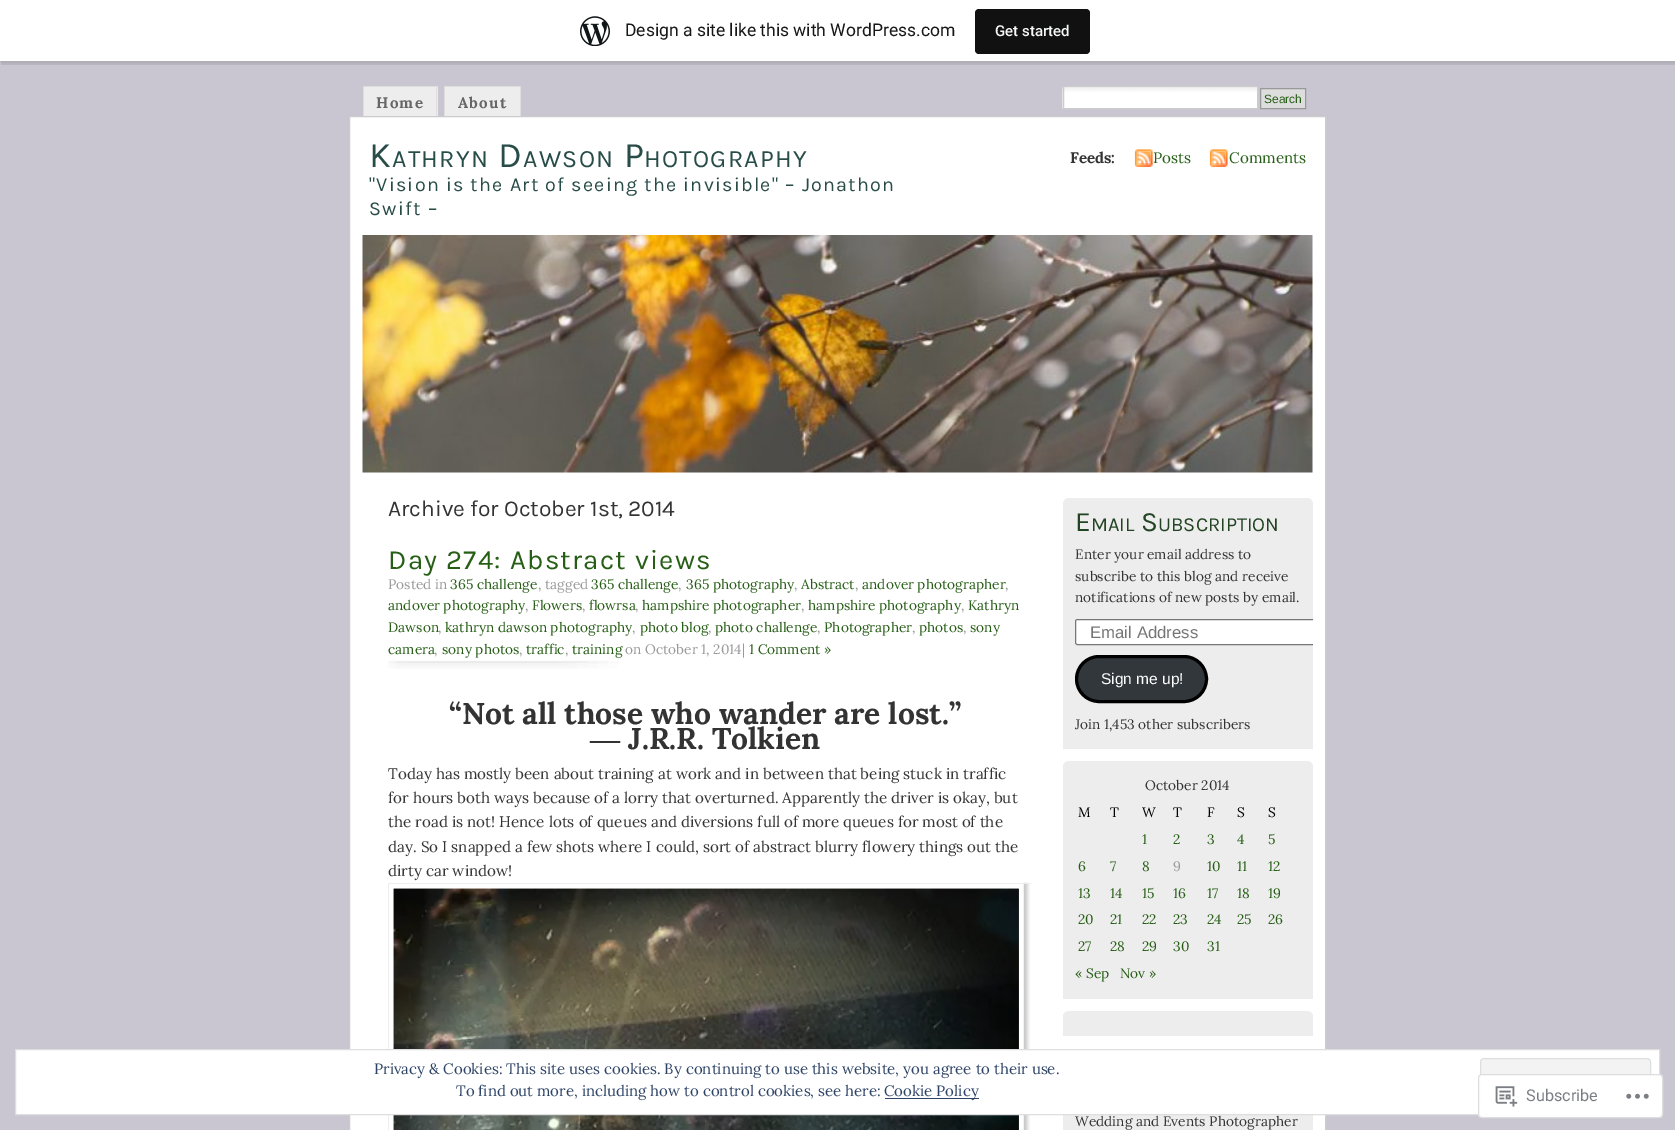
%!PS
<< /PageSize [1675 1130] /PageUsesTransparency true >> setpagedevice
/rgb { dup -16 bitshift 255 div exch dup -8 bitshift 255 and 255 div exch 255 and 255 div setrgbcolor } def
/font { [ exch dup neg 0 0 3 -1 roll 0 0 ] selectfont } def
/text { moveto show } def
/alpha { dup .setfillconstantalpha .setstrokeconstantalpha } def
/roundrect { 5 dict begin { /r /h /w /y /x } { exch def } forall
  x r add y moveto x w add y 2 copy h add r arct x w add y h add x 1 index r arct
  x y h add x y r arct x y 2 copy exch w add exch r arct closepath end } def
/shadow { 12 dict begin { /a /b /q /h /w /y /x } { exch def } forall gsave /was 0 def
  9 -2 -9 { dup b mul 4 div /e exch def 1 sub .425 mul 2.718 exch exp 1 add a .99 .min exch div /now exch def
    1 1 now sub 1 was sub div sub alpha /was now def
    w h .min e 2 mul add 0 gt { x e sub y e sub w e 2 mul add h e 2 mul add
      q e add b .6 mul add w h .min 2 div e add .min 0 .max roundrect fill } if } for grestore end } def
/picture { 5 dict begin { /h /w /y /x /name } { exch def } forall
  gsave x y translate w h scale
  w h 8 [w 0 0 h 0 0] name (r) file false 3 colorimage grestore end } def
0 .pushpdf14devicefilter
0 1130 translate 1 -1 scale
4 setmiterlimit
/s1 { /Roboto-Regular 17.5 font 16#171717 rgb } def
/s2 { /Roboto-Medium 15 font 16#F6F7F7 rgb } def
/s3 { /LiberationSans-Regular 12 font 16#265E15 rgb } def
/s4 { /Lora-Bold 15.2 font 16#333333 rgb } def
/s5 { /Lora-Regular 15.2 font 16#265E15 rgb } def
/s6 { /Karla-Regular 22.75 font 16#333333 rgb } def
/s7 { /Lora-Regular 13.7 font 16#999999 rgb } def
/s8 { /Lora-Regular 13.7 font 16#265E15 rgb } def
/s9 { /Lora-Bold 30 font 16#333333 rgb } def
/s10 { /LiberationSerif-Bold 30 font 16#333333 rgb } def
/s11 { /Lora-Regular 15.2 font 16#333333 rgb } def
/s12 { /Karla-Regular 28 font 16#224422 rgb } def
/s13 { /Karla-Regular 20 font 16#224422 rgb } def
/s14 { /Lora-Regular 13.7 font 16#333333 rgb } def
/s15 { /LiberationSans-Regular 16.75 font 16#757575 rgb } def
/s16 { /LiberationSans-Regular 15.5 font 16#FFFFFF rgb } def
/s17 { /Lora-Regular 13.7 font 16#000000 rgb } def
/s18 { /Lora-Regular 15 font 16#2E4467 rgb } def
/s19 { /Roboto-Regular 16.25 font 16#7A7E84 rgb } def
16#C9C6D1 rgb
0 0 1675 1130 rectfill
16#000000 rgb
0 1 1675 62 0 1 0.05 shadow
0.08 alpha
1 61 moveto 1 65 lineto 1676 65 lineto 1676 4 lineto 1675 4 lineto 1675 61 lineto closepath fill
1 alpha
16#FFFFFF rgb
0 0 1675 61 rectfill
(pic1.raw) 580 16 30 30 picture
s1
(Design a site like this with WordPress.com) 625 36 text
16#111111 rgb
975 9 115 45 4 roundrect fill
s2
(Get started) 995 36 text
16#EDEDED rgb
364 87 74 29 rectfill
16#DEDEDE rgb
363 86 75 1 rectfill
436 86 1 30 rectfill
363 86 1 30 rectfill
/Lora-Bold 15.2 font
16#666666 rgb
376 108 moveto 1.25 0 (Home) ashow
16#EDEDED rgb
445 87 75 29 rectfill
16#DEDEDE rgb
444 86 77 1 rectfill
520 86 1 30 rectfill
444 86 1 30 rectfill
16#666666 rgb
458 108 moveto 1.25 0 (About) ashow
16#FFFFFF rgb
1064 87 193 1 rectfill
(pic2.raw) 1062 87 195 22 picture
16#CCCCCC rgb
1063.5 86.5 194 22 rectstroke
16#DDDDDD rgb
1260.5 88.5 moveto 1305.5 88.5 lineto 1305.5 108.5 lineto 1260.5 108.5 lineto closepath gsave fill grestore
16#999999 rgb
stroke
s3
(Search) 1264 103 text
16#FFFFFF rgb
349.5 116.5 moveto 1325.5 116.5 lineto 1325.5 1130.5 lineto 349.5 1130.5 lineto closepath gsave fill grestore
16#CCCCCC rgb
stroke
/Karla-Regular 36 font
16#284C48 rgb
369 167 moveto 1.25 0 (K) ashow
/Karla-Regular 25 font
392 167 moveto 1.25 0 (ATHRYN) ashow
/Karla-Regular 36 font
498 167 moveto 1.25 0 (D) ashow
/Karla-Regular 25 font
523 167 moveto 1.25 0 (AWSON) ashow
/Karla-Regular 36 font
624 167 moveto 1.25 0 (P) ashow
/Karla-Regular 25 font
644 167 moveto 1.25 0 (HOTOGRAPHY) ashow
/Karla-Regular 19.75 font
369 191 moveto 1.25 0 ("Vision is the Art of seeing the invisible" – Jonathon) ashow
369 215 moveto 1.25 0 (Swift –) ashow
s4
(Feeds:) 1070 163 text
(pic3.raw) 1134 149 19 18 picture
s5
(Posts) 1153 163 text
(pic4.raw) 1209 149 19 18 picture
(Comments) 1229 163 text
(pic5.raw) 362 235 951 238 picture
s6
(Archive for October 1st, 2014) 388 516 text
/Karla-Regular 27.7 font
16#265E15 rgb
388 569 moveto 1.25 0 (Day 274: Abstract views) ashow
(pic6.raw) 388 660 230 9 picture
s7
(Posted in) 388 589 text
s8
(365 challenge) 450 589 text
s7
(, tagged) 538 589 text
s8
(365 challenge) 591 589 text
s7
(,) 678 589 text
s8
(365 photography) 686 589 text
s7
(,) 794 589 text
s8
(Abstract) 801 589 text
s7
(,) 855 589 text
s8
(andover photographer) 862 589 text
s7
(,) 1005 589 text
s8
(andover photography) 388 610 text
s7
(,) 525 610 text
s8
(Flowers) 532 610 text
s7
(,) 582 610 text
s8
(flowrsa) 589 610 text
s7
(,) 635 610 text
s8
(hampshire photographer) 642 610 text
s7
(,) 801 610 text
s8
(hampshire photography) 808 610 text
s7
(,) 961 610 text
s8
(Kathryn) 968 610 text
(Dawson) 388 632 text
s7
(,) 438 632 text
s8
(kathryn dawson photography) 445 632 text
s7
(,) 632 632 text
s8
(photo blog) 640 632 text
s7
(,) 708 632 text
s8
(photo challenge) 715 632 text
s7
(,) 817 632 text
s8
(Photographer) 824 632 text
s7
(,) 912 632 text
s8
(photos) 919 632 text
s7
(,) 963 632 text
s8
(sony) 970 632 text
(camera) 388 654 text
s7
(,) 434 654 text
s8
(sony photos) 442 654 text
s7
(,) 519 654 text
s8
(traffic) 526 654 text
s7
(,) 565 654 text
s8
(training) 572 654 text
s7
(on October 1, 2014|) 625 654 text
s8
(1 Comment ») 749 654 text
s9
(“Not all those who wander are lost.”) 449 724 text
s10
(―) 590 749 text
s9
(J.R.R. Tolkien) 628 749 text
gsave
388 691 650 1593 rectclip
s11
(Today has mostly been about training at work and in between that being stuck in traffic) 388 779 text
grestore
s11
(for hours both ways because of a lorry that overturned. Apparently the driver is okay, but) 388 803 text
(the road is not! Hence lots of queues and diversions full of more queues for most of the) 388 827 text
(day. So I snapped a few shots where I could, sort of abstract blurry flowery things out the) 388 852 text
(dirty car window!) 388 876 text
(pic7.raw) 393 882 637 248 picture
16#EEEEEE rgb
388 883 643 1 rectfill
388 883 1 247 rectfill
(pic8.raw) 393 888 626 242 picture
16#EDEDED rgb
1069 498 moveto 1307 498 lineto 1310.5 498 1313 500.5 1313 504 curveto 1313 749 lineto 1063 749 lineto 1063 504 lineto 1063 500.5 1065.5 498 1069 498 curveto closepath fill
s12
(E) 1075 531 text
s13
(MAIL) 1091 531 text
s12
(S) 1141 531 text
s13
(UBSCRIPTION) 1158 531 text
s14
(Enter your email address to) 1075 559 text
(subscribe to this blog and receive) 1075 581 text
(notifications of new posts by email.) 1075 602 text
16#FFFFFF rgb
1077.5 619 moveto 1313 619 lineto 1313 645 lineto 1077.5 645 lineto 1076 645 1075 644 1075 642.5 curveto 1075 621.5 lineto 1075 620 1076 619 1077.5 619 curveto closepath fill
gsave
1063 498 250 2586 rectclip
16#767676 rgb
1075.5 619.5 243 25 2 roundrect stroke
grestore
s15
(Email Address) 1090 638 text
16#32373C rgb
1076.5 656.5 130 45 22.5 roundrect gsave fill grestore
16#000000 rgb
3 setlinewidth
stroke
s16
(Sign me up!) 1101 684 text
s14
(Join 1,453 other subscribers) 1075 729 text
16#EDEDED rgb
1069 761 moveto 1307 761 lineto 1310.5 761 1313 763.5 1313 767 curveto 1313 999 lineto 1063 999 lineto 1063 767 lineto 1063 763.5 1065.5 761 1069 761 curveto closepath fill
s14
(October 2014) 1145 790 text
s17
(M) 1078 817 text
(T) 1110 817 text
(W) 1142 817 text
(T) 1173 817 text
(F) 1207 817 text
(S) 1237 817 text
(S) 1268 817 text
s8
(1) 1142 844 text
(2) 1173 844 text
(3) 1207 844 text
(4) 1237 844 text
(5) 1268 844 text
(6) 1078 871 text
(7) 1110 871 text
(8) 1142 871 text
s7
(9) 1173 871 text
s8
(10) 1207 871 text
(11) 1237 871 text
(12) 1268 871 text
(13) 1078 898 text
(14) 1110 898 text
(15) 1142 898 text
(16) 1173 898 text
(17) 1207 898 text
(18) 1237 898 text
(19) 1268 898 text
(20) 1078 924 text
(21) 1110 924 text
(22) 1142 924 text
(23) 1173 924 text
(24) 1207 924 text
(25) 1237 924 text
(26) 1268 924 text
(27) 1078 951 text
(28) 1110 951 text
(29) 1142 951 text
(30) 1173 951 text
(31) 1207 951 text
(« Sep) 1075 978 text
(Nov ») 1120 978 text
16#EDEDED rgb
1069 1011 moveto 1307 1011 lineto 1310.5 1011 1313 1013.5 1313 1017 curveto 1313 1036 lineto 1063 1036 lineto 1063 1017 lineto 1063 1013.5 1065.5 1011 1069 1011 curveto closepath fill
1063 1115 250 15 rectfill
s14
(Wedding and Events Photographer) 1075 1126 text
16#FFFFFF rgb
15.5 1049.5 moveto 1659.5 1049.5 lineto 1659.5 1114.5 lineto 15.5 1114.5 lineto closepath gsave fill grestore
16#DEDEDE rgb
1 setlinewidth
stroke
s18
(Privacy & Cookies: This site uses cookies. By continuing to use this website, you agree to their use.) 374 1074 text
16#F3F3F3 rgb
1480.5 1058.5 170 47 3.5 roundrect gsave fill grestore
16#DEDEDE rgb
stroke
s18
(To find out more, including how to control cookies, see here:) 456 1096 text
885 1098 94 1 rectfill
(Cookie Policy) 884 1096 text
0.98 alpha
16#FFFFFF rgb
1478 1074 185 44 4 roundrect fill
16#DCDCDE rgb
1478.5 1074.5 184 43 3.5 roundrect stroke
1 alpha
(pic9.raw) 1495 1086 23 21 picture
s19
(Subscribe) 1526 1101 text
(pic10.raw) 1626 1093 23 6 picture
.poppdf14devicefilter showpage
